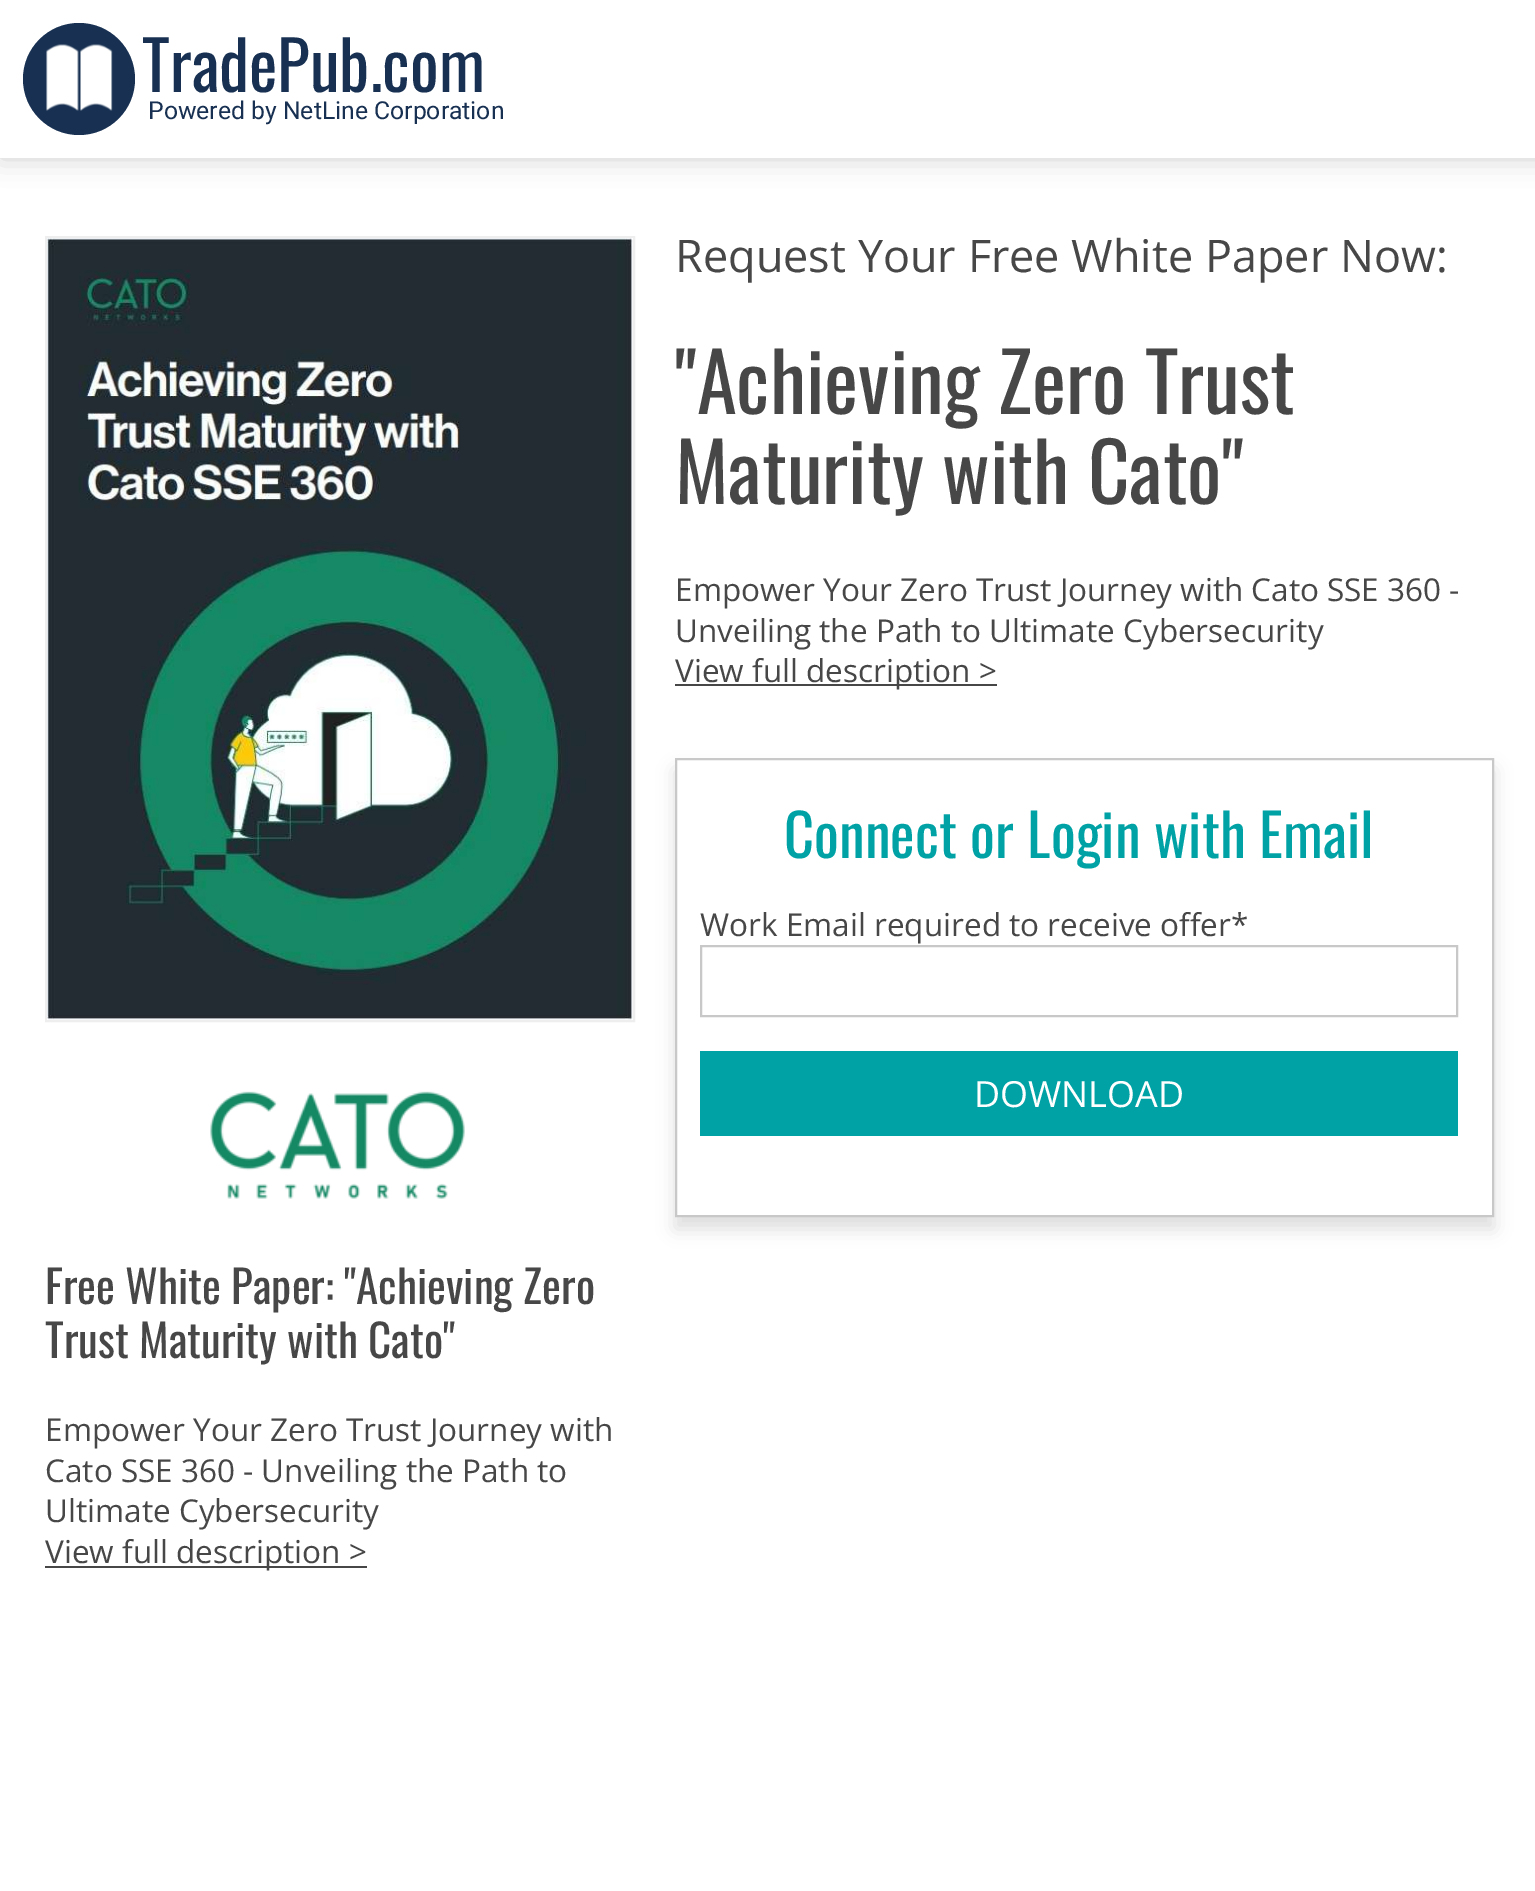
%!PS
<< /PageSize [1535 1891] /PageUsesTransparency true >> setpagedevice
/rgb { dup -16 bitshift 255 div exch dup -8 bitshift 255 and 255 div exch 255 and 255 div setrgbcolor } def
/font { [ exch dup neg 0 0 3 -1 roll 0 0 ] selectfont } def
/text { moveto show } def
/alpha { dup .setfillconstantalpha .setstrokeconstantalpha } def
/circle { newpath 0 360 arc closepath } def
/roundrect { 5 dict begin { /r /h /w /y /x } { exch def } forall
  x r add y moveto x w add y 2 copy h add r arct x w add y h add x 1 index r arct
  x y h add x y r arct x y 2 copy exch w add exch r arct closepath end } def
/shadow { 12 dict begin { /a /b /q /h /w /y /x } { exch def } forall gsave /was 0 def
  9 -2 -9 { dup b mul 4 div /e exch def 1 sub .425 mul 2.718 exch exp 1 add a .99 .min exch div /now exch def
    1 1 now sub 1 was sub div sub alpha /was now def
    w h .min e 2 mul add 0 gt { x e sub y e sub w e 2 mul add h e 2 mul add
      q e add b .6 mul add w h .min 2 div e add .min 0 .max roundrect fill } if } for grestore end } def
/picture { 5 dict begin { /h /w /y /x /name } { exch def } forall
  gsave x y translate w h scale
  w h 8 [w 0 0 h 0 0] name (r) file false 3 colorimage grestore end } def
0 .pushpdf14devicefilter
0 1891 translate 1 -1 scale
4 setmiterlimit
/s1 { /Oswald-Regular 67.5 font 16#183152 rgb } def
/s2 { /Roboto-Regular 24.75 font 16#183152 rgb } def
/s3 { /OpenSans-Regular 45 font 16#474747 rgb } def
/s4 { /Oswald-Regular 81 font 16#474747 rgb } def
/s5 { /OpenSans-Regular 31.5 font 16#474747 rgb } def
/s6 { /Oswald-Regular 58.5 font 16#01A2A6 rgb } def
/s7 { /OpenSans-Regular 36 font 16#FFFFFF rgb } def
/s8 { /Oswald-Regular 45 font 16#474747 rgb } def
16#FFFFFF rgb
0 0 1535 1891 rectfill
16#CCCCCC rgb
0 0 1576 158 0 13.5 1 shadow
16#FFFFFF rgb
0 0 1535 158 rectfill
16#183152 rgb
79 79 56 circle fill
(pic1.raw) 46 44 67 67 picture
s1
(TradePub.com) 142 92 text
s2
(Powered by NetLine Corporation) 148 119 text
s3
(Request Your Free White Paper Now:) 675 272 text
s4
("Achieving Zero Trust) 675 414 text
(Maturity with Cato") 675 504 text
s5
(Empower Your Zero Trust Journey with Cato SSE 360 -) 675 601 text
(Unveiling the Path to Ultimate Cybersecurity) 675 642 text
675 684 322 2 rectfill
(View full description >) 675 682 text
gsave
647 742 moveto 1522 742 lineto 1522 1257 lineto 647 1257 lineto closepath 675 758 moveto 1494 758 lineto 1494 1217 lineto 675 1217 lineto closepath eoclip newpath
16#DDDDDD rgb
675 770 819 459 0 9 1 shadow
grestore
16#C8C8C8 rgb
2 setlinewidth
676 759 817 457 rectstroke
s6
(Connect or Login with Email) 784 858 text
s5
(Work Email required to receive offer*) 700 936 text
16#C8C8C8 rgb
701 946 756 70 rectstroke
16#01A2A6 rgb
700 1051 758 85 rectfill
s7
(DOWNLOAD) 974 1107 text
16#EEEEEE rgb
46 237 588 784 rectstroke
(pic2.raw) 47 238 586 782 picture
(pic3.raw) 210 1091 255 108 picture
s8
(Free White Paper: "Achieving Zero) 45 1304 text
(Trust Maturity with Cato") 45 1358 text
s5
(Empower Your Zero Trust Journey with) 45 1441 text
(Cato SSE 360 - Unveiling the Path to) 45 1482 text
(Ultimate Cybersecurity) 45 1522 text
45 1566 322 2 rectfill
(View full description >) 45 1563 text
.poppdf14devicefilter showpage
